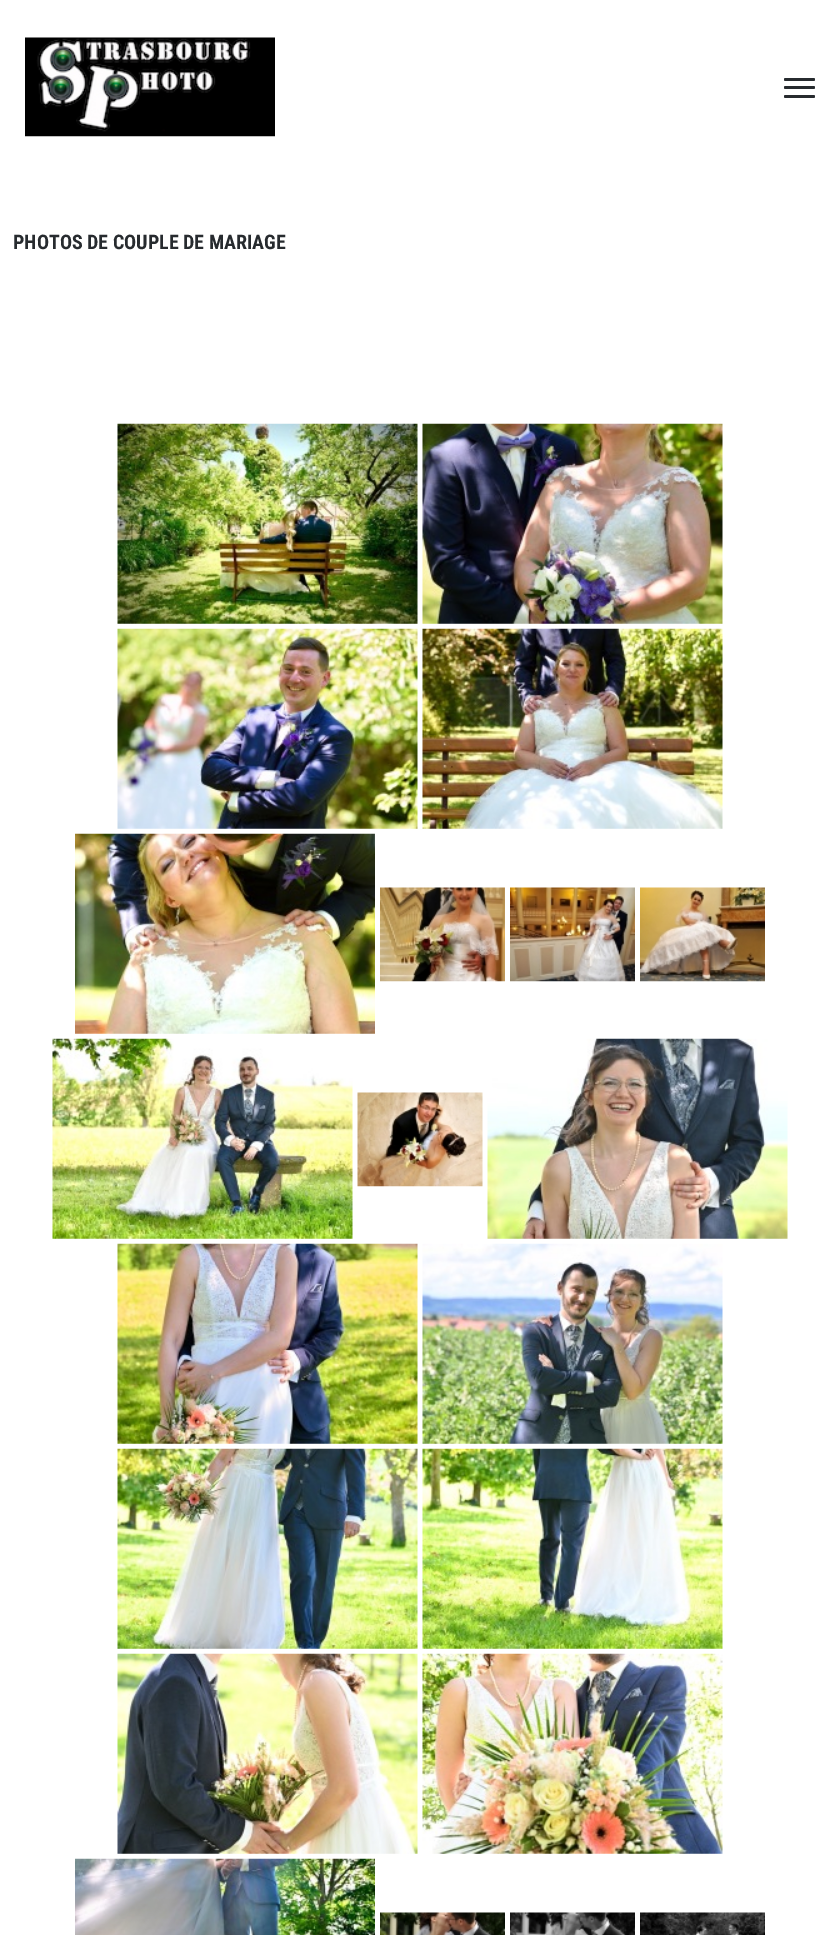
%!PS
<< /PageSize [839 1935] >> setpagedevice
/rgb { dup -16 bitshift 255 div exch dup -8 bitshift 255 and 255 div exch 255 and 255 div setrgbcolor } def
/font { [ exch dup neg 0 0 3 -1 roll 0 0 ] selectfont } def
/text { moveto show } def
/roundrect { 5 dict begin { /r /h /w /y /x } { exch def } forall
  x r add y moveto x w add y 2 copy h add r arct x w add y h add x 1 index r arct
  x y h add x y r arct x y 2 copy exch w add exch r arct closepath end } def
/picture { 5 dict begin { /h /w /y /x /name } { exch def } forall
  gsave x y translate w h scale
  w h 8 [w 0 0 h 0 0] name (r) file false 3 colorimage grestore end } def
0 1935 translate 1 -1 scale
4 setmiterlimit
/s1 { /RobotoCondensed-Bold 20 font 16#272B2F rgb } def
16#FFFFFF rgb
0 0 839 1935 rectfill
(pic1.raw) 25 37 250 100 picture
16#272B2F rgb
784 86 31 3 1.5 roundrect fill
784 78 31 3 1.5 roundrect fill
784 95 31 3 1.5 roundrect fill
s1
(PHOTOS DE COUPLE DE MARIAGE) 13 249 text
(pic2.raw) 117 423 301 201 picture
(pic3.raw) 422 423 301 201 picture
(pic4.raw) 117 628 301 201 picture
(pic5.raw) 422 628 301 201 picture
(pic6.raw) 75 833 300 201 picture
(pic7.raw) 380 887 125 95 picture
(pic8.raw) 510 887 125 95 picture
(pic9.raw) 640 887 125 95 picture
(pic10.raw) 52 1038 301 201 picture
(pic11.raw) 357 1092 126 95 picture
(pic12.raw) 487 1038 301 201 picture
(pic13.raw) 117 1243 301 201 picture
(pic14.raw) 422 1243 301 201 picture
(pic15.raw) 117 1448 301 201 picture
(pic16.raw) 422 1448 301 201 picture
(pic17.raw) 117 1653 301 201 picture
(pic18.raw) 422 1653 301 201 picture
(pic19.raw) 75 1858 300 77 picture
(pic20.raw) 380 1912 125 23 picture
(pic21.raw) 510 1912 125 23 picture
(pic22.raw) 640 1912 125 23 picture
showpage
